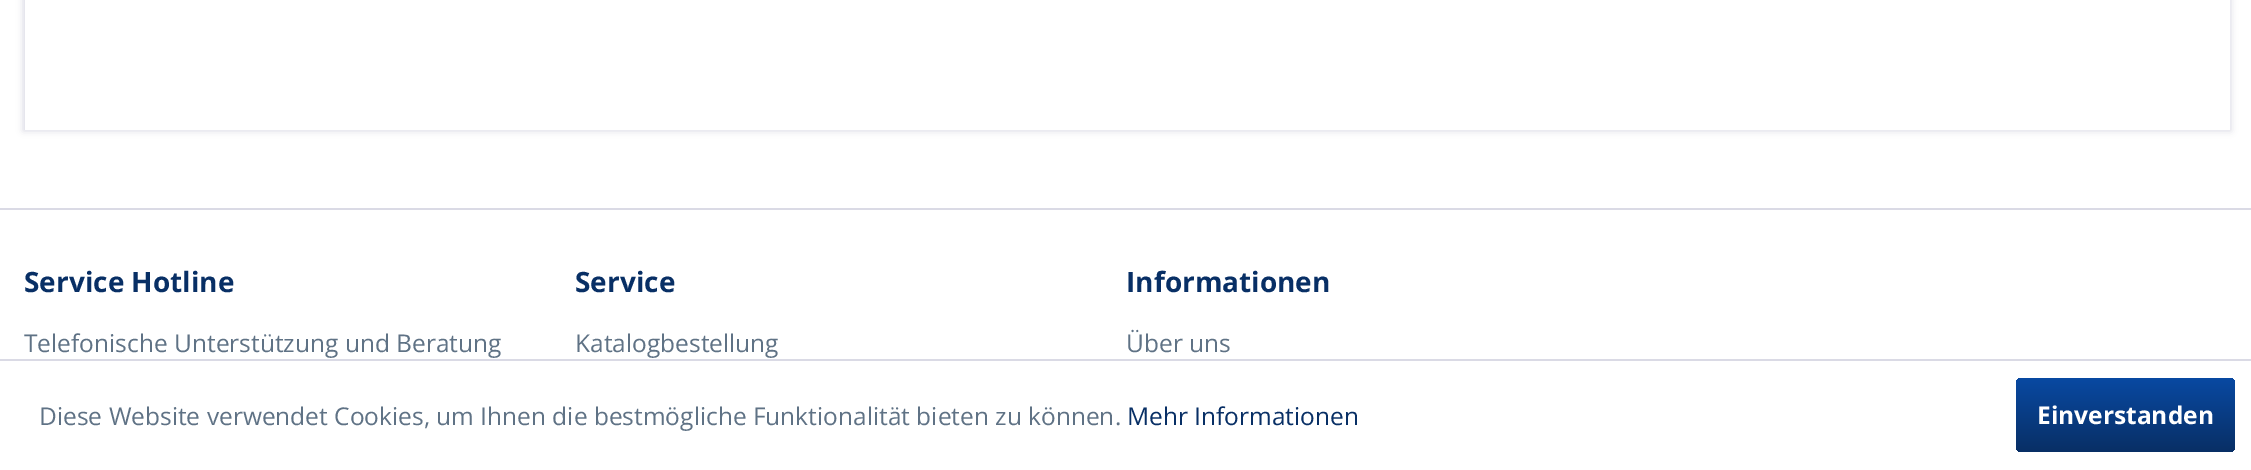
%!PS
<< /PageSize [2251 470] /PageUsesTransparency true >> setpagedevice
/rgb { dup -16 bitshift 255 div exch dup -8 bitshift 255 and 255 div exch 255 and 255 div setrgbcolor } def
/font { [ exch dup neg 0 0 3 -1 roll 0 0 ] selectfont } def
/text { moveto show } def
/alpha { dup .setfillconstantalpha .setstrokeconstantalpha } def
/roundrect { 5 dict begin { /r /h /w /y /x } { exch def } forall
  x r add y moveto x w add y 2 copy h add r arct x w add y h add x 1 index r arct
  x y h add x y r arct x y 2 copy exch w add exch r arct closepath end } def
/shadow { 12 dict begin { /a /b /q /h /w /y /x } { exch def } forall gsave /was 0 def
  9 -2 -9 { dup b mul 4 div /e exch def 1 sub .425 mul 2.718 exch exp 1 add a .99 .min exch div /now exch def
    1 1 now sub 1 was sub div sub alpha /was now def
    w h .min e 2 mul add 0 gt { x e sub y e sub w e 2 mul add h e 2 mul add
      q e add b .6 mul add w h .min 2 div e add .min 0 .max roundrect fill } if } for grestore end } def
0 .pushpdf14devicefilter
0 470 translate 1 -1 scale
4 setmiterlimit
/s1 { /OpenSans-Bold 28 font 16#082F65 rgb } def
/s2 { /OpenSans-Regular 24.5 font 16#5F7285 rgb } def
/s3 { /OpenSans-Regular 24.5 font 16#082F65 rgb } def
/s4 { /OpenSans-Bold 24.5 font 16#FFFFFF rgb } def
16#FFFFFF rgb
0 0 2251 470 rectfill
16#DADAE5 rgb
23 -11 2208 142 0 3.5 1 shadow
16#FFFFFF rgb
25 0 2205 130 rectfill
16#DADAE5 rgb
0 208 2251 2 rectfill
s1
(Service Hotline) 24 292 text
s2
(Telefonische Unterstützung und Beratung) 24 352 text
s1
(Service) 575 292 text
s2
(Katalogbestellung) 575 352 text
s1
(Informationen) 1126 292 text
s2
(Über uns) 1126 352 text
16#DADAE5 rgb
0 359 2251 2 rectfill
s2
(Diese Website verwendet Cookies, um Ihnen die bestmögliche Funktionalität bieten zu können.) 39 425 text
s3
(Mehr Informationen) 1127 425 text
gsave 2016 378 219 74 5 roundrect clip newpath
<< /ShadingType 2 /ColorSpace /DeviceRGB /Coords [2125 378 2125 452] /Extend [true true] /Function << /FunctionType 2 /Domain [0 1] /C0 [0.031 0.286 0.635] /C1 [0.031 0.184 0.396] /N 1 >> >> shfill grestore
s4
(Einverstanden) 2037 424 text
.poppdf14devicefilter showpage
